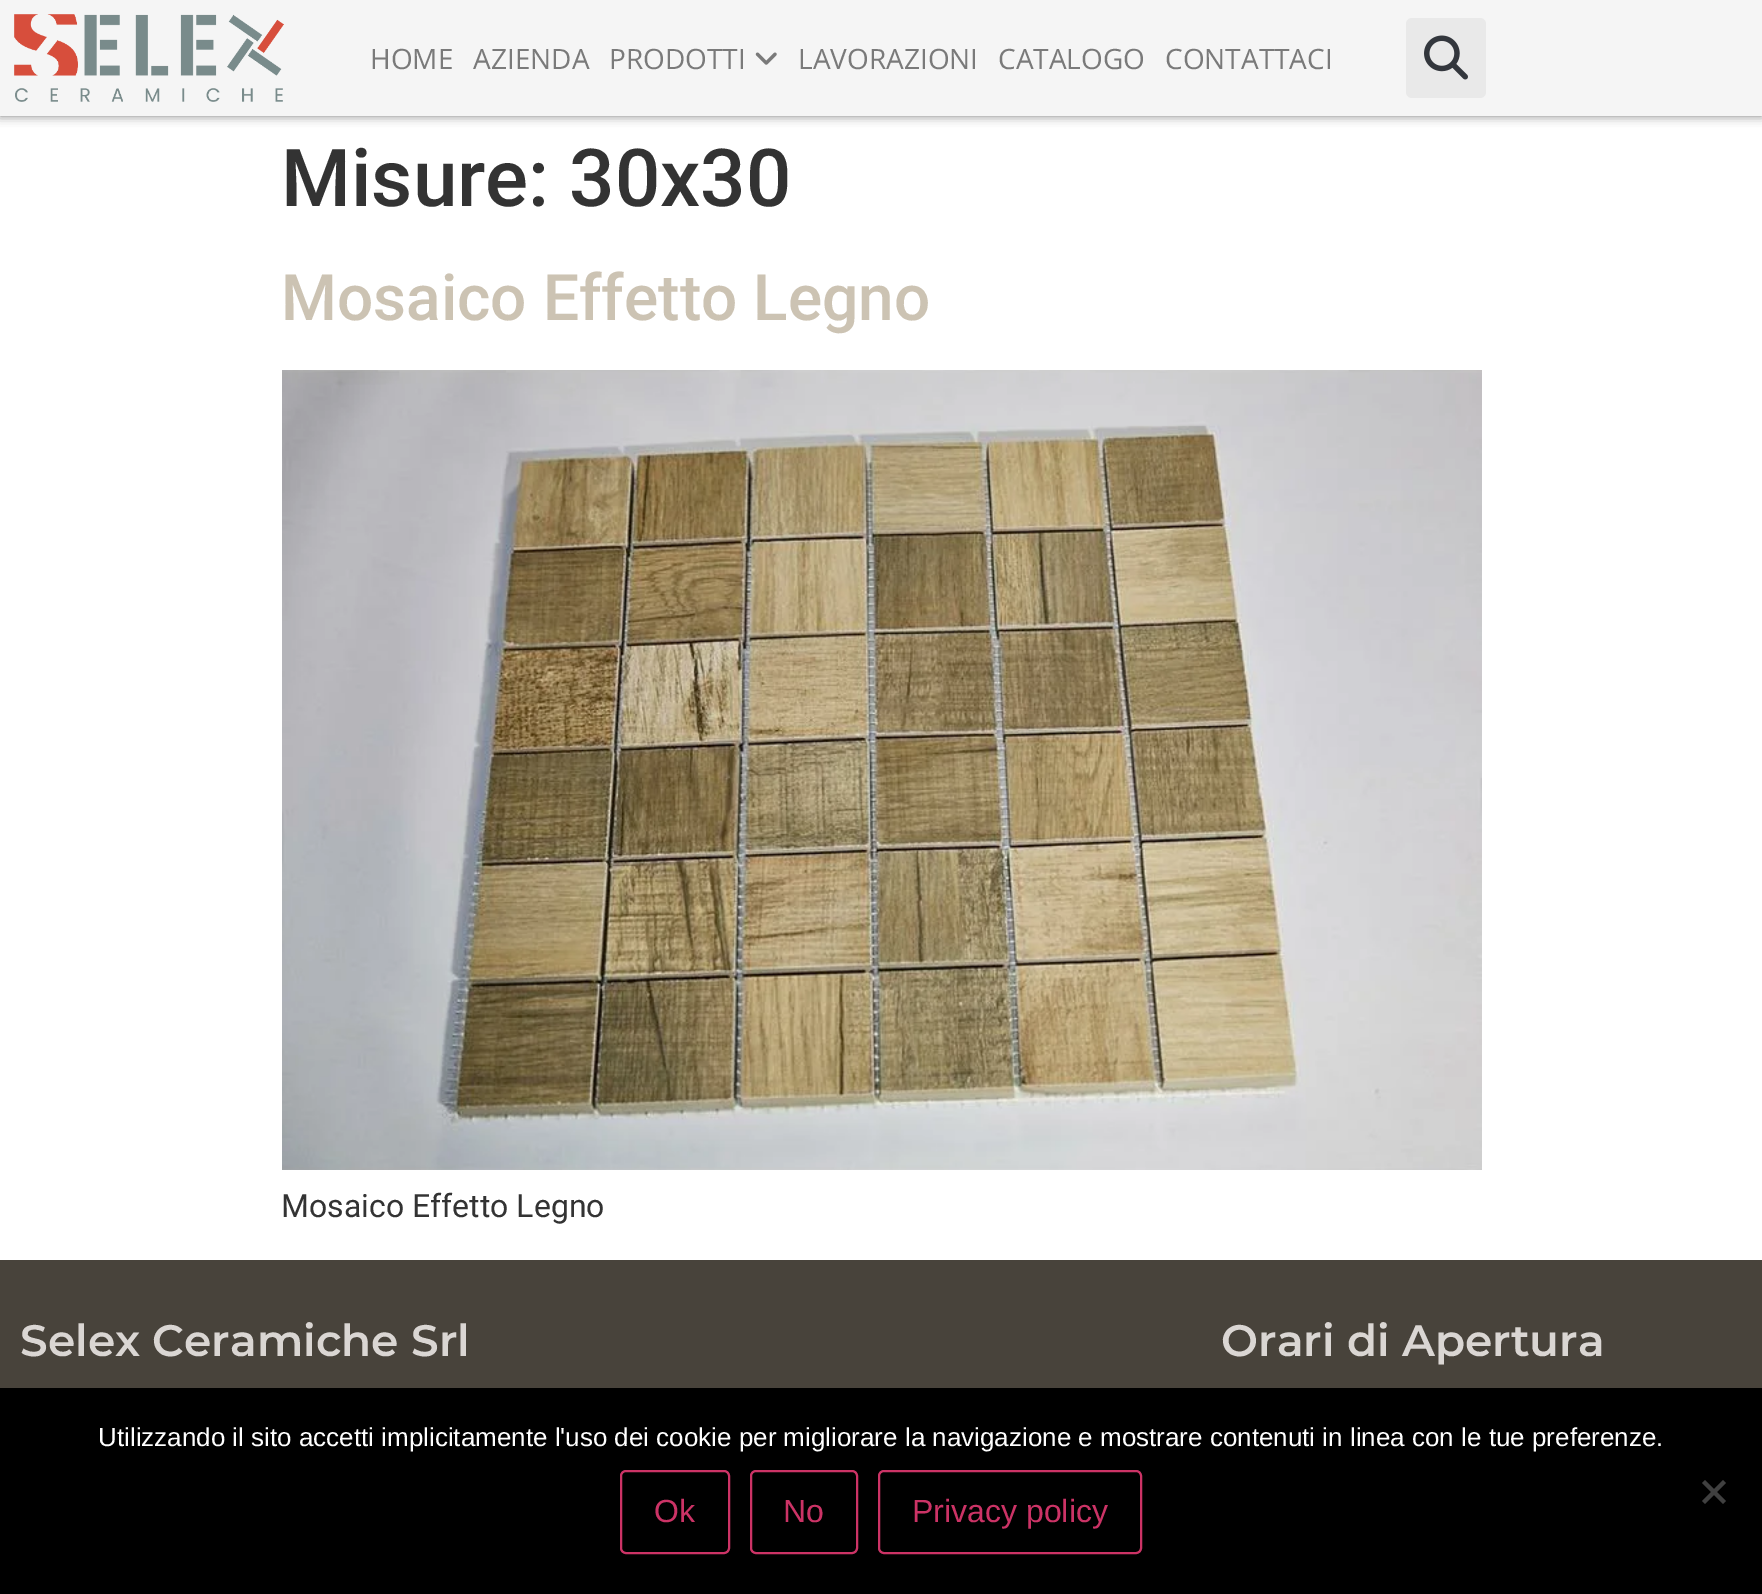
%!PS
<< /PageSize [1762 1594] /PageUsesTransparency true >> setpagedevice
/rgb { dup -16 bitshift 255 div exch dup -8 bitshift 255 and 255 div exch 255 and 255 div setrgbcolor } def
/font { [ exch dup neg 0 0 3 -1 roll 0 0 ] selectfont } def
/text { moveto show } def
/alpha { dup .setfillconstantalpha .setstrokeconstantalpha } def
/roundrect { 5 dict begin { /r /h /w /y /x } { exch def } forall
  x r add y moveto x w add y 2 copy h add r arct x w add y h add x 1 index r arct
  x y h add x y r arct x y 2 copy exch w add exch r arct closepath end } def
/shadow { 12 dict begin { /a /b /q /h /w /y /x } { exch def } forall gsave /was 0 def
  9 -2 -9 { dup b mul 4 div /e exch def 1 sub .425 mul 2.718 exch exp 1 add a .99 .min exch div /now exch def
    1 1 now sub 1 was sub div sub alpha /was now def
    w h .min e 2 mul add 0 gt { x e sub y e sub w e 2 mul add h e 2 mul add
      q e add b .6 mul add w h .min 2 div e add .min 0 .max roundrect fill } if } for grestore end } def
/picture { 5 dict begin { /h /w /y /x /name } { exch def } forall
  gsave x y translate w h scale
  w h 8 [w 0 0 h 0 0] name (r) file false 3 colorimage grestore end } def
0 .pushpdf14devicefilter
0 1594 translate 1 -1 scale
4 setmiterlimit
/s1 { /OpenSans-Regular 28 font 16#7A7A7A rgb } def
/s2 { /Roboto-Medium 80 font 16#333333 rgb } def
/s3 { /Roboto-Medium 64 font 16#CCC3B3 rgb } def
/s4 { /Roboto-Regular 32 font 16#333333 rgb } def
/s5 { /Montserrat-SemiBold 44 font 16#DAD6D3 rgb } def
/s6 { /LiberationSans-Regular 26 font 16#FFFFFF rgb } def
/s7 { /LiberationSans-Regular 32 font 16#CC3366 rgb } def
16#FFFFFF rgb
0 0 1762 1594 rectfill
16#000000 rgb
0 0 1762 116 0 5 0.5 shadow
16#F5F5F5 rgb
0 0 1762 116 rectfill
(pic1.raw) 14 14 270 88 picture
s1
(HOME) 370 69 text
(AZIENDA) 473 69 text
(PRODOTTI) 609 69 text
(pic2.raw) 755 52 22 13 picture
(LAVORAZIONI) 798 69 text
(CATALOGO) 998 69 text
(CONTATTACI) 1165 69 text
16#E9E9E9 rgb
1406 18 80 80 6 roundrect fill
(pic3.raw) 1424 35 44 45 picture
s2
(Misure: 30x30) 281 206 text
s3
(Mosaico Effetto Legno) 281 320 text
(pic4.raw) 282 370 1200 800 picture
s4
(Mosaico Effetto Legno) 281 1217 text
16#48433B rgb
0 1260 1762 128 rectfill
s5
(Selex Ceramiche Srl) 20 1356 text
(Orari di Apertura) 1221 1356 text
16#000000 rgb
0 1388 1762 206 rectfill
s6
(Utilizzando il sito accetti implicitamente l'uso dei cookie per migliorare la navigazione e mostrare contenuti in linea con le tue preferenze.) 98 1446 text
16#404040 rgb
1723 1480 moveto 1726 1483 lineto 1705 1504 lineto 1702 1501 lineto closepath fill
1702 1483 moveto 1705 1480 lineto 1726 1501 lineto 1723 1504 lineto closepath fill
16#CC3366 rgb
2 setlinewidth
621 1471 108 82 5 roundrect stroke
s7
(Ok) 654 1522 text
751 1471 106 82 5 roundrect stroke
(No) 783 1522 text
879 1471 262 82 5 roundrect stroke
(Privacy policy) 912 1522 text
.poppdf14devicefilter showpage
